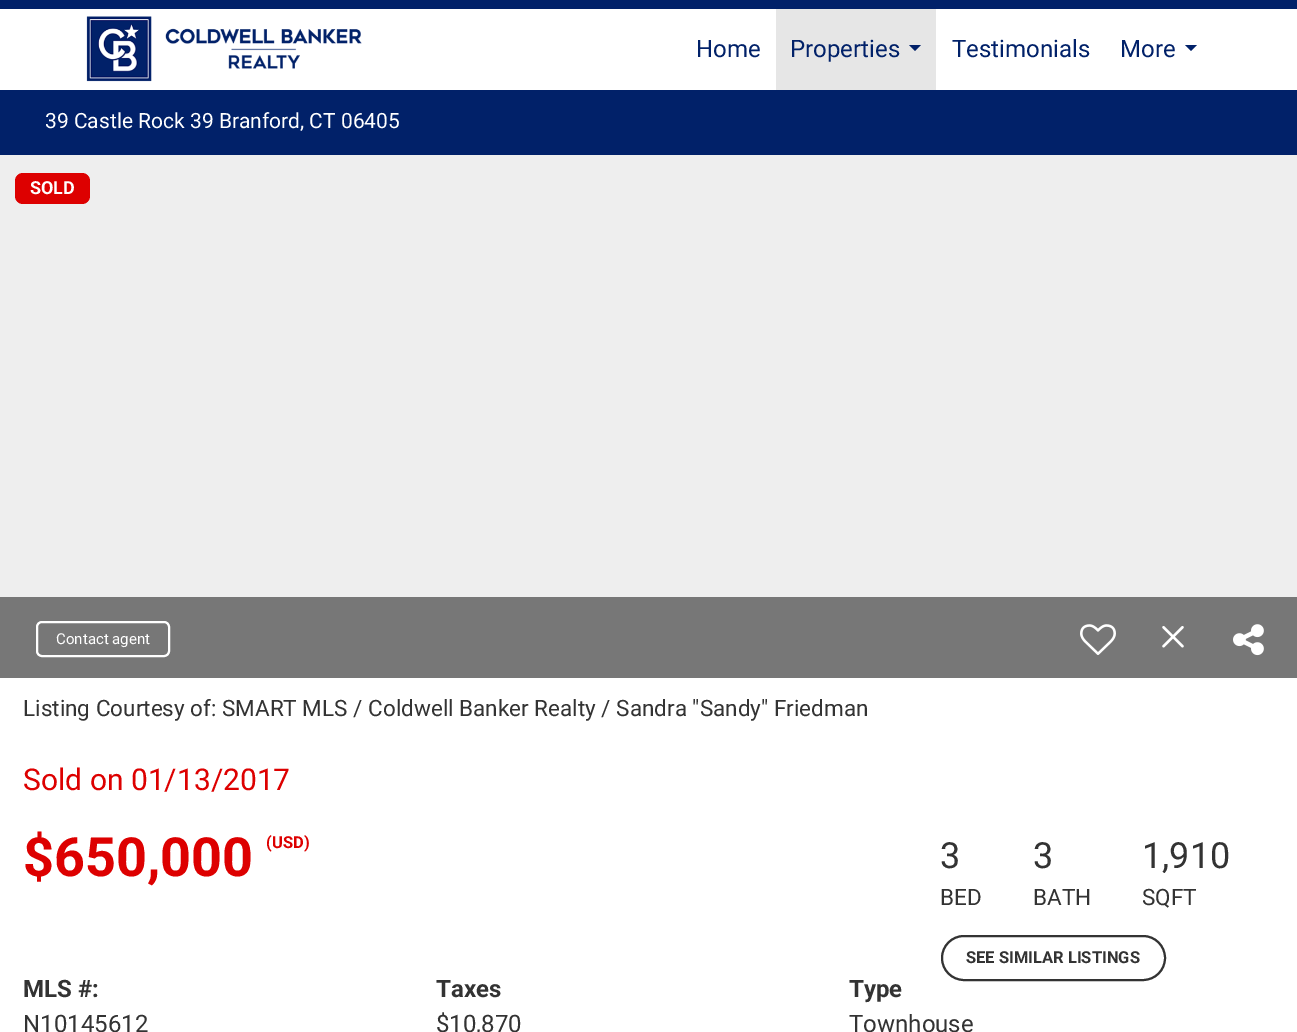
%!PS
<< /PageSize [1297 1032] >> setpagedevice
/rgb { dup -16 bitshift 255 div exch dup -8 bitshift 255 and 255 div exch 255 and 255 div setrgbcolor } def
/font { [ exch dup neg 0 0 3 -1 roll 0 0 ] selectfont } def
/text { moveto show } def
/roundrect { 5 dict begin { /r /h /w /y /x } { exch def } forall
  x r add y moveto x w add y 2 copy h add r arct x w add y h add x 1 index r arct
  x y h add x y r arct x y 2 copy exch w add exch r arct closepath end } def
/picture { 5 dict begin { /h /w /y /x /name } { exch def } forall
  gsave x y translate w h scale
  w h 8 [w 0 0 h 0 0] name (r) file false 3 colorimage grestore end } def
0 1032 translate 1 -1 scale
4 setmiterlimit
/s1 { /Roboto-Regular 24 font 16#012169 rgb } def
/s2 { /Roboto-Regular 21 font 16#FFFFFF rgb } def
/s3 { /Roboto-Bold 18 font 16#FFFFFF rgb } def
/s4 { /Roboto-Regular 15 font 16#FFFFFF rgb } def
/s5 { /Roboto-Regular 22.5 font 16#333333 rgb } def
/s6 { /Roboto-Regular 30 font 16#DD0000 rgb } def
/s7 { /Roboto-Bold 54 font 16#DD0000 rgb } def
/s8 { /Roboto-Bold 16.5 font 16#DD0000 rgb } def
/s9 { /Roboto-Regular 36 font 16#333333 rgb } def
/s10 { /Roboto-Bold 16.5 font 16#333333 rgb } def
/s11 { /Roboto-Bold 24 font 16#333333 rgb } def
/s12 { /Roboto-Regular 24 font 16#333333 rgb } def
16#FFFFFF rgb
0 0 1297 1032 rectfill
16#012169 rgb
0 0 1297 9 rectfill
(pic1.raw) 86 16 276 66 picture
s1
(Home) 696 57 text
16#E6E6E6 rgb
776 9 160 81 rectfill
s1
(Properties) 790 57 text
909 45 moveto 921 45 lineto 915 51 lineto closepath fill
(Testimonials) 952 57 text
(More) 1120 57 text
1185 45 moveto 1197 45 lineto 1191 51 lineto closepath fill
0 90 1297 65 rectfill
s2
(39 Castle Rock 39 Branford, CT 06405) 45 128 text
16#EEEEEE rgb
0 155 1297 442 rectfill
16#DD0000 rgb
15 173 75 31 8 roundrect fill
s3
(SOLD) 30 194 text
16#777777 rgb
0 597 1297 81 rectfill
16#FFFFFF rgb
2 setlinewidth
37 622 132 34 5 roundrect stroke
s4
(Contact agent) 56 644 text
(pic2.raw) 1080 624 36 31 picture
(pic3.raw) 1162 626 22 22 picture
(pic4.raw) 1233 624 31 32 picture
s5
(Listing Courtesy of: SMART MLS / Coldwell Banker Realty / Sandra "Sandy" Friedman) 23 716 text
s6
(Sold on 01/13/2017) 23 790 text
s7
($650,000) 23 876 text
s8
(\(USD\)) 266 848 text
s9
(3) 940 868 text
s5
(BED) 940 905 text
s9
(3) 1033 868 text
s5
(BATH) 1033 905 text
s9
(1,910) 1142 868 text
s5
(SQFT) 1142 905 text
942 936 223 44 22 roundrect stroke
s10
(SEE SIMILAR LISTINGS) 966 963 text
s11
(MLS #:) 23 997 text
s12
(N10145612) 23 1032 text
s11
(Taxes) 436 997 text
s12
($10,870) 436 1032 text
s11
(Type) 849 997 text
s12
(Townhouse) 849 1032 text
showpage
